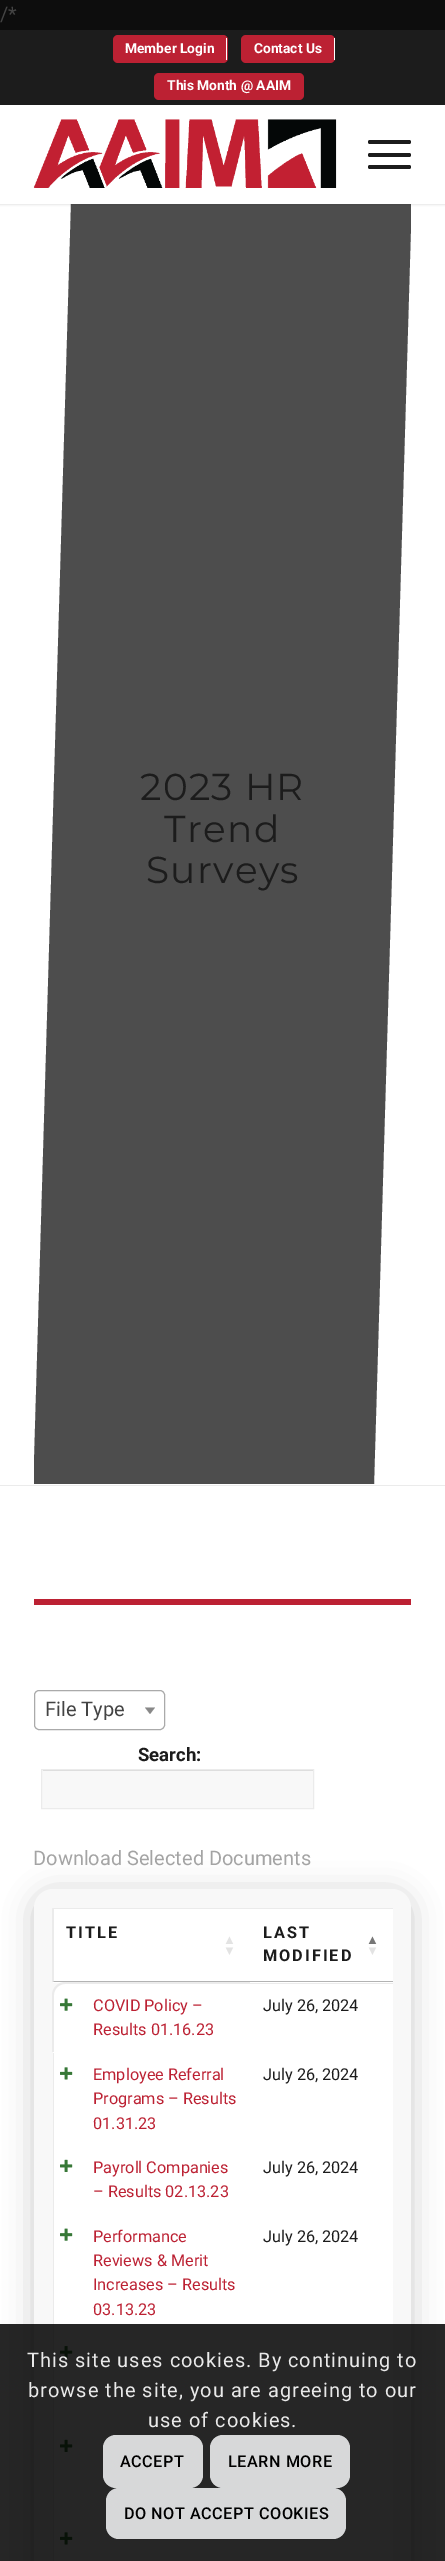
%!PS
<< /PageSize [445 2561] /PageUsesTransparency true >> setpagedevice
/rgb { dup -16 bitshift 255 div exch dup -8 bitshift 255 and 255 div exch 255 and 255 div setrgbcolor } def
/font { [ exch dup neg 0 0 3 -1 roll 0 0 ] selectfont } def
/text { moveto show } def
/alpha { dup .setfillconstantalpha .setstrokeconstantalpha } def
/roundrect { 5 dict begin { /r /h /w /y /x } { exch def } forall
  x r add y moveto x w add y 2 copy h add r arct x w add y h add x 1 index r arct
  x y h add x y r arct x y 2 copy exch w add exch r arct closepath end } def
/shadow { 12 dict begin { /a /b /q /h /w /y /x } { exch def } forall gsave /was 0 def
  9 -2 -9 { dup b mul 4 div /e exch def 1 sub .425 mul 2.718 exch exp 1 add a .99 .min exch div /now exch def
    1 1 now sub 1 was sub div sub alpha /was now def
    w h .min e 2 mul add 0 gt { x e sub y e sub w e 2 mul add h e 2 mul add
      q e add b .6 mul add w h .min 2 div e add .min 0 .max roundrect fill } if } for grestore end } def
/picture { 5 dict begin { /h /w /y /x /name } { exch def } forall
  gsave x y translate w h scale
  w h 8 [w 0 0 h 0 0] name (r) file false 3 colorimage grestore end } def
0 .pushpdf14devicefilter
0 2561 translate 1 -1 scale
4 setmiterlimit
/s1 { /Roboto-Regular 20 font 16#444444 rgb } def
/s2 { /Roboto-Bold 13.75 font 16#FFFFFF rgb } def
/s3 { /Roboto-Bold 18.5 font 16#1C1C1C rgb } def
/s4 { /Roboto-Regular 20 font 16#A4A4A4 rgb } def
/s5 { /Roboto-Regular 16.25 font 16#BC2133 rgb } def
/s6 { /Roboto-Regular 16.25 font 16#1C1C1C rgb } def
16#0D0D0D rgb
0 0 445 2561 rectfill
s1
(/*) 0 21 text
16#FFFFFF rgb
0 204 445 2357 rectfill
16#4D4D4D rgb
34 1463 moveto 71 204 lineto 411 204 lineto 411 225 lineto 374 1484 lineto 34 1484 lineto closepath fill
16#000000 rgb
-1 29 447 176 0 1 0.1 shadow
16#1C1C1C rgb
0 30 445 75 rectfill
16#BC2133 rgb
113 35 115 28 5 roundrect fill
16#FFFFFF rgb
226 38 1 22 rectfill
s2
(Member Login) 125 53 text
16#BC2133 rgb
241 35 94 28 5 roundrect fill
16#FFFFFF rgb
334 38 1 22 rectfill
(Contact Us) 254 53 text
16#BC2133 rgb
154 73 150 27 5 roundrect fill
s2
(This Month @ AAIM) 167 90 text
0 105 445 99 rectfill
(pic1.raw) 33 119 304 69 picture
16#1C1C1C rgb
368 153 43 4 2 roundrect fill
368 140 43 4 2 roundrect fill
368 165 43 4 2 roundrect fill
/Montserrat-Thin 37.5 font
140 800 moveto 1.25 0 (2023 HR) ashow
164 842 moveto 1.25 0 (Trend) ashow
146 883 moveto 1.25 0 (Surveys) ashow
16#EBEBEB rgb
0 1485 445 1 rectfill
16#BC2133 rgb
34 1599 377 2 rectfill
408 1599 3 6 rectfill
34 1601 377 4 rectfill
16#AAAAAA rgb
34.5 1690.5 130 39 4.5 roundrect stroke
s1
(File Type) 45 1716 text
16#888888 rgb
145 1707.5 moveto 155 1707.5 lineto 150 1714 lineto closepath fill
s3
(Search:) 138 1761 text
16#F8F8F8 rgb
42 1770 271 38 rectfill
16#D9D9D9 rgb
43 1770 270 1 rectfill
16#EBEBEB rgb
41.5 1769.5 272 39 rectstroke
16#000000 rgb
34 1893 377 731 19 14.5 0.2 shadow
s4
(Download Selected Documents) 33 1865 text
16#F8F8F8 rgb
34 1889 377 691 19 roundrect fill
16#FFFFFF rgb
53 1909 340 74 rectfill
16#EBEBEB rgb
53 1908 340 1 rectfill
16#B3B3B3 rgb
250 1982 moveto 52 1982 lineto 54 1981 lineto 250 1981 lineto closepath fill
16#EBEBEB rgb
52 1982 moveto 52 1908 lineto 54 1909 lineto 54 1981 lineto closepath fill
/Roboto-Bold 16.25 font
16#1C1C1C rgb
66 1938 moveto 2 0 (TITLE) ashow
/LiberationSans-Bold 13 font
16#E3E3E3 rgb
223 1944 moveto 2 0 (▲) ashow
223 1955 moveto 2 0 (▼) ashow
16#B3B3B3 rgb
250 1981 143 1 rectfill
/Roboto-Bold 16.25 font
16#1C1C1C rgb
263 1938 moveto 2 0 (LAST) ashow
/LiberationSans-Bold 13 font
16#777777 rgb
366 1944 moveto 2 0 (▲) ashow
/Roboto-Bold 16.25 font
16#1C1C1C rgb
263 1961 moveto 2 0 (MODIFIED) ashow
/LiberationSans-Bold 13 font
16#E3E3E3 rgb
366 1955 moveto 2 0 (▼) ashow
16#FFFFFF rgb
66 1983 moveto 250 1983 lineto 250 2053 lineto 53 2053 lineto 53 1996 lineto 53 1989 59 1983 66 1983 curveto closepath fill
16#EBEBEB rgb
65 1982 moveto 250 1982 lineto 250 2052 lineto 52 2052 lineto 52 1995 lineto 52 1988 58 1982 65 1982 curveto closepath 65 1984 moveto 250 1984 lineto 250 2052 lineto 54 2052 lineto 54 1995 lineto 54 1989 59 1984 65 1984 curveto closepath eofill
(pic2.raw) 60 1998 13 13 picture
s5
(COVID Policy –) 93 2011 text
(Results 01.16.23) 93 2035 text
16#FFFFFF rgb
250 1984 143 69 rectfill
16#EBEBEB rgb
250 1983 143 1 rectfill
s6
(July 26, 2024) 263 2011 text
16#FFFFFF rgb
54 2053 339 92 rectfill
16#EBEBEB rgb
53 2053 1 508 rectfill
(pic3.raw) 60 2067 13 13 picture
s5
(Employee Referral) 93 2080 text
(Programs – Results) 93 2104 text
(01.31.23) 93 2129 text
s6
(July 26, 2024) 263 2080 text
16#FFFFFF rgb
54 2145 339 69 rectfill
(pic4.raw) 60 2159 13 13 picture
s5
(Payroll Companies) 93 2173 text
(– Results 02.13.23) 93 2197 text
s6
(July 26, 2024) 263 2173 text
16#FFFFFF rgb
54 2214 339 117 rectfill
(pic2.raw) 60 2228 13 13 picture
s5
(Performance) 93 2242 text
(Reviews & Merit) 93 2266 text
(Increases – Results) 93 2290 text
(03.13.23) 93 2315 text
s6
(July 26, 2024) 263 2242 text
16#FFFFFF rgb
54 2331 339 94 rectfill
(pic5.raw) 60 2346 13 13 picture
54 2425 339 93 rectfill
(pic4.raw) 60 2439 13 13 picture
54 2518 339 43 rectfill
(pic3.raw) 60 2532 13 13 picture
0.85 alpha
16#000000 rgb
0 2324 445 237 rectfill
/Roboto-Regular 20 font
1 alpha
16#E9E9E9 rgb
27 2367 moveto 1 0 (This site uses cookies. By continuing to) ashow
28 2397 moveto 1 0 (browse the site, you are agreeing to our) ashow
148 2427 moveto 1 0 (use of cookies.) ashow
16#D7D8D9 rgb
103 2435 100 53 13 roundrect fill
/Roboto-Medium 16.25 font
16#000000 rgb
120 2467 moveto 0.5 0 (ACCEPT) ashow
16#D7D8D9 rgb
210 2435 140 53 13 roundrect fill
16#000000 rgb
228 2467 moveto 0.5 0 (LEARN MORE) ashow
16#D7D8D9 rgb
106 2488 240 51 13 roundrect fill
16#000000 rgb
124 2519 moveto 0.5 0 (DO NOT ACCEPT COOKIES) ashow
.poppdf14devicefilter showpage
